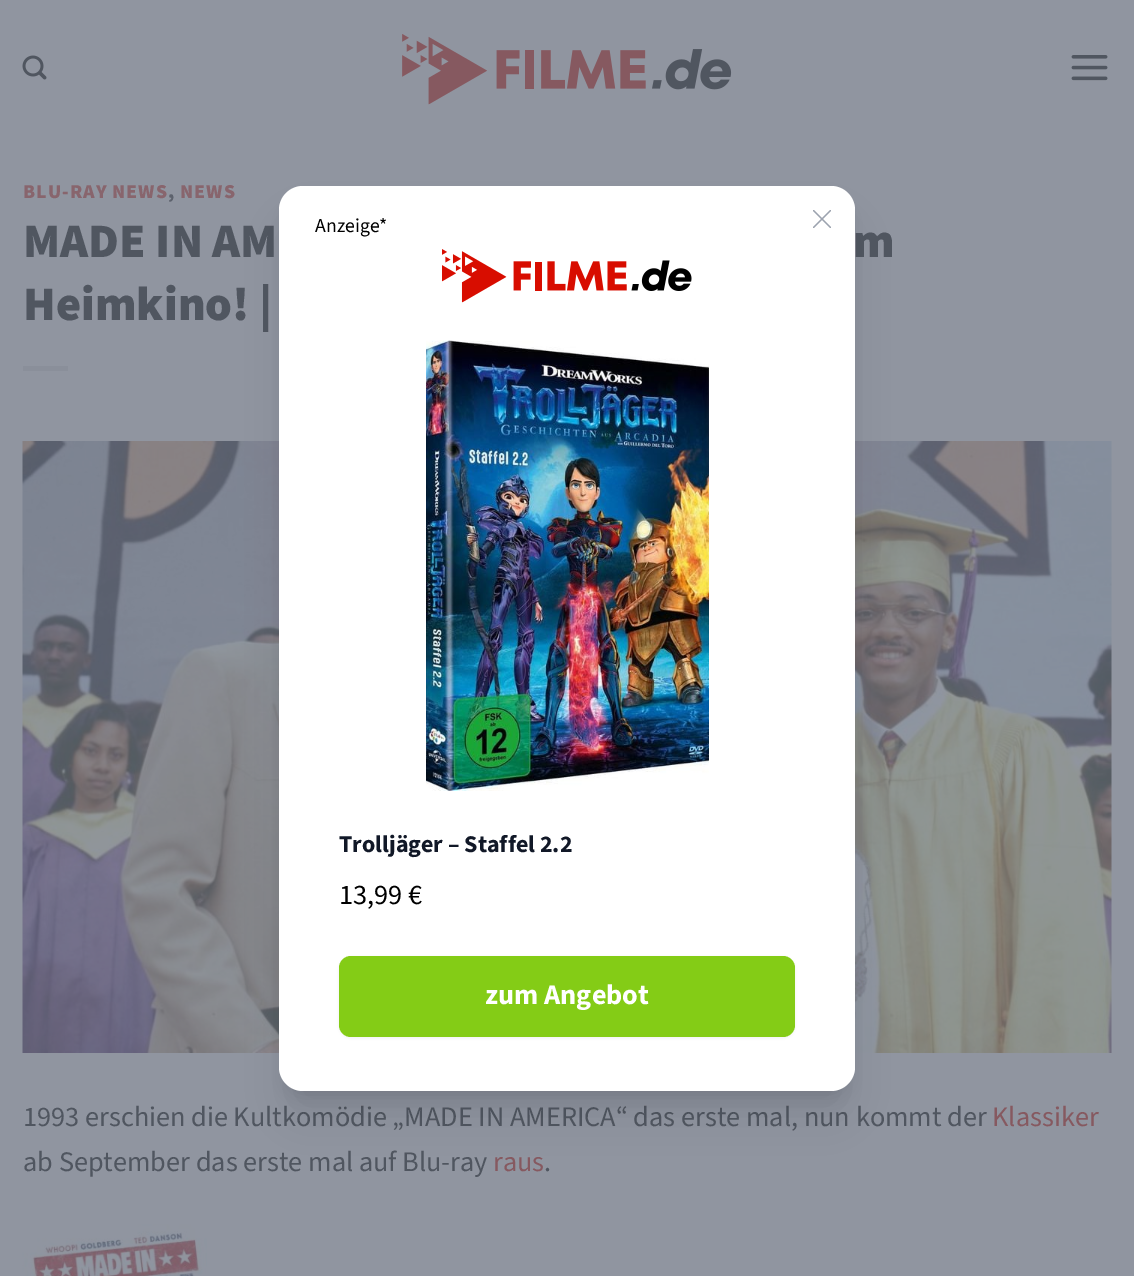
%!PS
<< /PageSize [1134 1276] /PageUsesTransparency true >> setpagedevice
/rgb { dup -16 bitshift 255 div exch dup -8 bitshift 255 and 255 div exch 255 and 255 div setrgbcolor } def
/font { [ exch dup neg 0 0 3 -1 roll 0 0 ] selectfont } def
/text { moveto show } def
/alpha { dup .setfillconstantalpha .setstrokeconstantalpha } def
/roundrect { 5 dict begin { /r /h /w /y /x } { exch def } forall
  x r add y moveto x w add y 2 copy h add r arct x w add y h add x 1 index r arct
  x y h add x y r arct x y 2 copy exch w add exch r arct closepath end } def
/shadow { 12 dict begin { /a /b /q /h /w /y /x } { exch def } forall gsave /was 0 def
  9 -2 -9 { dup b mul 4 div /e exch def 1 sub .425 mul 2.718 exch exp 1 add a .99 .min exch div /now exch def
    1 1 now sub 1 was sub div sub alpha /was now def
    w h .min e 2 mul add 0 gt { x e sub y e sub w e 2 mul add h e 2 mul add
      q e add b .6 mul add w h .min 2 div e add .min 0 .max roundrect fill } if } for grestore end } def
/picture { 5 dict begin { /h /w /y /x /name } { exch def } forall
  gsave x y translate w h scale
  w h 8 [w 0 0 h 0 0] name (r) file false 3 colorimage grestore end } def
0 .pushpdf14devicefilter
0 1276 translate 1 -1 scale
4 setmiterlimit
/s1 { /SourceSans3-Black 48 font 16#505660 rgb } def
/s2 { /SourceSans3-Regular 28.3 font 16#505660 rgb } def
/s3 { /SourceSans3-Regular 28.3 font 16#865960 rgb } def
/s4 { /SourceSans3-Regular 19.75 font 16#000000 rgb } def
/s5 { /SourceSans3-Bold 24 font 16#111827 rgb } def
/s6 { /SourceSans3-Regular 28.3 font 16#000000 rgb } def
/s7 { /SourceSans3-Bold 28.3 font 16#FFFFFF rgb } def
16#9095A0 rgb
0 0 1134 1276 rectfill
(pic1.raw) 22 55 25 25 picture
(pic2.raw) 402 34 330 71 picture
(pic3.raw) 1071 55 37 26 picture
/SourceSans3-Black 19.75 font
16#88656D rgb
23 198 moveto 1 0 (BLU-RAY NEWS) ashow
16#5D626D rgb
168 198 moveto 1 0 (,) ashow
16#88656D rgb
180 198 moveto 1 0 (NEWS) ashow
s1
(MADE IN AM) 23 257 text
(m) 853 257 text
(Heimkino! |) 23 320 text
16#8A8F9A rgb
23 366 45 5 rectfill
(pic4.raw) 22 441 1090 612 picture
s2
(1993 erschien die Kultkomödie „MADE IN AMERICA“ das erste mal, nun kommt der) 23 1126 text
s3
(Klassiker) 992 1126 text
s2
(ab September das erste mal auf Blu-ray) 23 1171 text
s3
(raus) 493 1171 text
s2
(.) 544 1171 text
(pic5.raw) 22 1224 185 52 picture
16#000000 rgb
288 207 558 887 15 7.5 0.1 shadow
287 224 561 889 17 19 0.1 shadow
16#FFFFFF rgb
279 186 576 905 24 roundrect fill
s4
(Anzeige*) 315 232 text
16#9CA3AF rgb
1.1 setlinewidth
1 setlinecap
1 setlinejoin
813.5 227.5 moveto 830.5 210.5 lineto 813.5 210.5 moveto 830.5 227.5 lineto stroke
(pic6.raw) 442 249 250 54 picture
(pic7.raw) 426 340 283 451 picture
s5
(Trolljäger – Staffel 2.2) 339 852 text
s6
(13,99 €) 339 904 text
339 957 456 81 12 1.5 0.05 shadow
16#84CC16 rgb
339 956 456 81 12 roundrect fill
s7
(zum Angebot) 485 1004 text
.poppdf14devicefilter showpage
